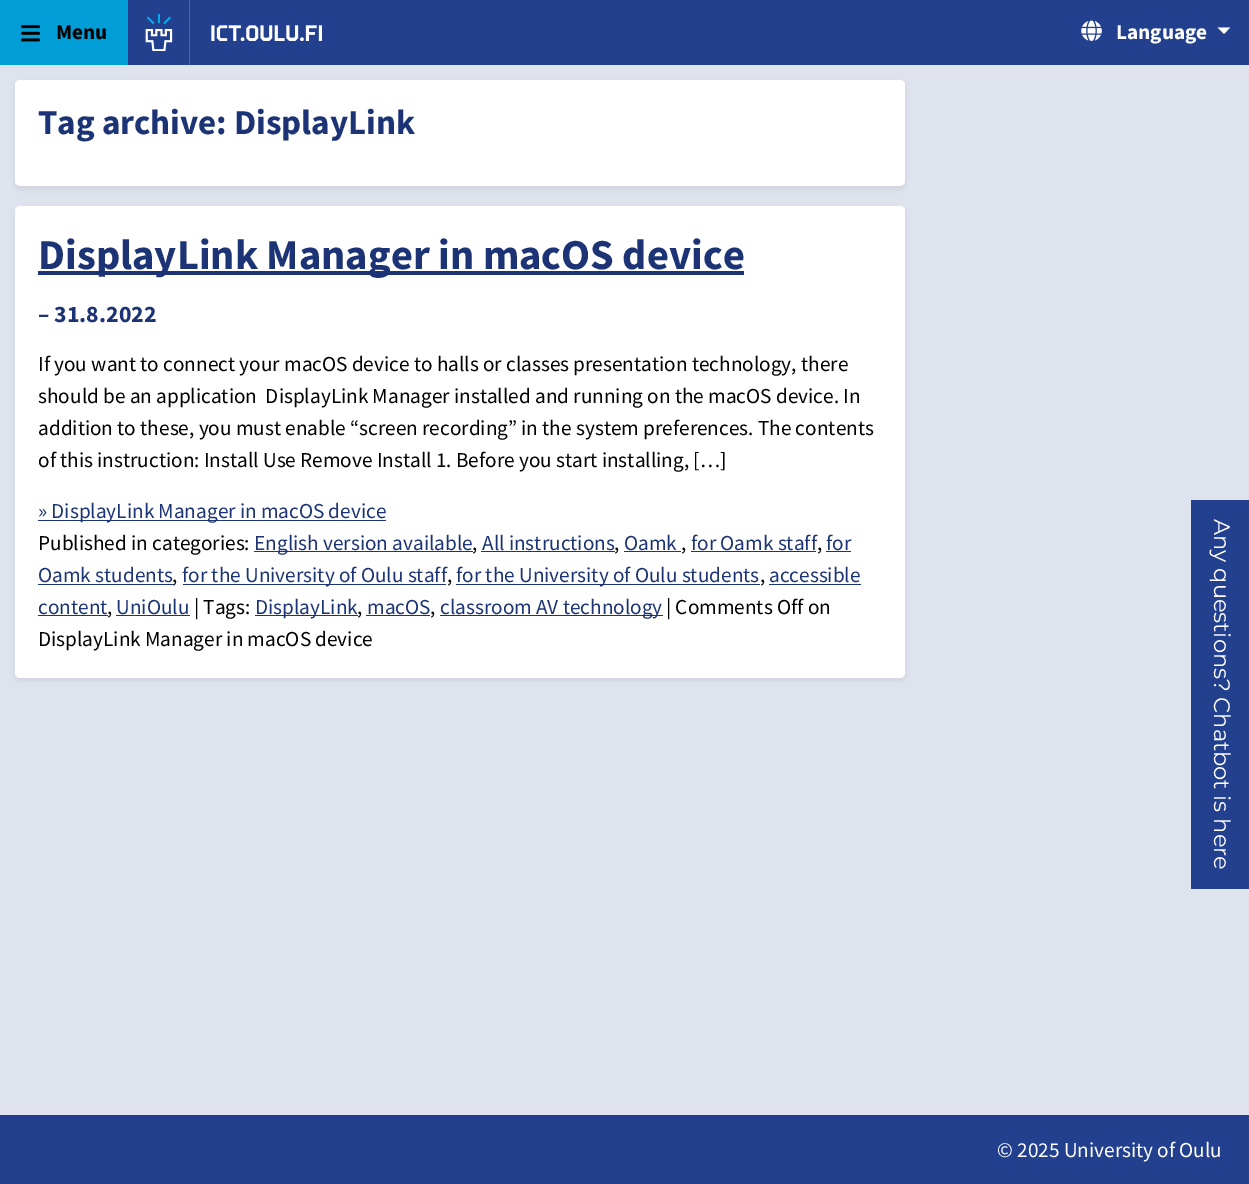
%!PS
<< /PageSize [1249 1184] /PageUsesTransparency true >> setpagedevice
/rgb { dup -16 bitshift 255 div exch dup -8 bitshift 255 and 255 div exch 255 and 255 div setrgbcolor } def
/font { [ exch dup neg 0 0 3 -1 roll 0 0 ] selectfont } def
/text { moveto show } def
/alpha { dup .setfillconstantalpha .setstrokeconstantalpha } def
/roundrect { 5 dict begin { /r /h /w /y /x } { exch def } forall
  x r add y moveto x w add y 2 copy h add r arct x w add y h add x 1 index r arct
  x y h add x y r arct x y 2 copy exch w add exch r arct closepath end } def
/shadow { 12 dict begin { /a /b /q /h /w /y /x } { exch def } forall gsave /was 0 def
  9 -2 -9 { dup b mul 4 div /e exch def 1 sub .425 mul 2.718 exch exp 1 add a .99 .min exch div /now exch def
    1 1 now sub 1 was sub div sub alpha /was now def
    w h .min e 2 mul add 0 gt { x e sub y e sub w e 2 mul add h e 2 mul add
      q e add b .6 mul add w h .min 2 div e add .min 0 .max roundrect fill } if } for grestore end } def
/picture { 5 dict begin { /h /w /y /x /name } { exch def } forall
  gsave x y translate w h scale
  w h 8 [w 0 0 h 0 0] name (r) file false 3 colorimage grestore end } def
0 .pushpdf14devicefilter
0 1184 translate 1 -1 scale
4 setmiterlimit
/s1 { /SourceSansPro-Bold 21.25 font 16#000000 rgb } def
/s2 { /SourceSansPro-Bold 21.25 font 16#FFFFFF rgb } def
/s3 { /SourceSansPro-Bold 35 font 16#1C3475 rgb } def
/s4 { /SourceSansPro-Bold 42.5 font 16#1C3475 rgb } def
/s5 { /SourceSansPro-Bold 23.75 font 16#1C3475 rgb } def
/s6 { /SourceSansPro-Regular 21.25 font 16#000000 rgb } def
/s7 { /SourceSansPro-Regular 21.25 font 16#1C3475 rgb } def
/s8 { /SourceSansPro-Regular 21.25 font 16#FFFFFF rgb } def
16#DEE3EE rgb
0 0 1249 1184 rectfill
16#23408F rgb
128 0 1121 65 rectfill
16#009DD6 rgb
0 0 128 65 rectfill
(pic1.raw) 21 25 19 17 picture
s1
(Menu) 56 39 text
(pic2.raw) 145 14 28 37 picture
16#4F66A5 rgb
189 0 1 65 rectfill
(pic3.raw) 211 25 111 16 picture
(pic4.raw) 1081 20 21 22 picture
s2
(Language) 1116 39 text
1217.5 27.5 moveto 1230 27.5 lineto 1224 34 lineto closepath fill
16#000000 rgb
15 83 890 106 5 2.5 0.07 shadow
16#FFFFFF rgb
15 80 890 106 5 roundrect fill
s3
(Tag archive: DisplayLink) 38 134 text
16#000000 rgb
15 209 890 471 5 2.5 0.07 shadow
16#FFFFFF rgb
15 206 890 472 5 roundrect fill
16#1C3475 rgb
38 271 706 4 rectfill
s4
(DisplayLink Manager in macOS device) 38 269 text
s5
(– 31.8.2022) 38 322 text
s6
(If you want to connect your macOS device to halls or classes presentation technology, there) 38 371 text
(should be an application  DisplayLink Manager installed and running on the macOS device. In) 38 403 text
(addition to these, you must enable “screen recording” in the system preferences. The contents) 38 435 text
(of this instruction: Install Use Remove Install 1. Before you start installing, […]) 38 467 text
16#1C3475 rgb
38 520 348 1 rectfill
(» DisplayLink Manager in macOS device) 38 518 text
s6
(Published in categories:) 38 550 text
16#1C3475 rgb
254 551 219 1 rectfill
(English version available) 254 550 text
s6
(,) 472 550 text
s7
(All instructions) 482 550 text
s6
(,) 614 550 text
16#1C3475 rgb
481 551 134 1 rectfill
(Oamk) 624 550 text
s6
(,) 681 550 text
16#1C3475 rgb
624 551 57 1 rectfill
(for Oamk staff) 691 550 text
s6
(,) 817 550 text
16#1C3475 rgb
691 551 125 1 rectfill
826 551 25 1 rectfill
(for) 826 550 text
(Oamk students) 38 582 text
s6
(,) 172 582 text
16#1C3475 rgb
38 584 135 1 rectfill
183 584 263 1 rectfill
(for the University of Oulu staff) 182 582 text
s6
(,) 447 582 text
16#1C3475 rgb
456 584 304 1 rectfill
(for the University of Oulu students) 456 582 text
s6
(,) 760 582 text
16#1C3475 rgb
769 584 92 1 rectfill
(accessible) 769 582 text
(content) 38 614 text
38 615 70 1 rectfill
s6
(,) 107 614 text
16#1C3475 rgb
116 615 74 1 rectfill
(UniOulu) 116 614 text
s6
(| Tags:) 194 614 text
16#1C3475 rgb
255 615 103 1 rectfill
(DisplayLink) 255 614 text
s6
(,) 357 614 text
s7
(macOS) 367 614 text
s6
(,) 430 614 text
16#1C3475 rgb
366 615 64 1 rectfill
440 615 223 1 rectfill
(classroom AV technology) 440 614 text
s6
(| Comments Off on) 666 614 text
(DisplayLink Manager in macOS device) 38 646 text
16#23408F rgb
0 1115 1249 69 rectfill
s8
(© 2025 University of Oulu) 997 1157 text
16#23408F rgb
1191 500 58 389 rectfill
/Montserrat-Regular 22.5 font
16#FFFFFF rgb
gsave 1214 519 translate 90 rotate 0 0 moveto (Any questions? Chatbot is here) show grestore
.poppdf14devicefilter showpage
